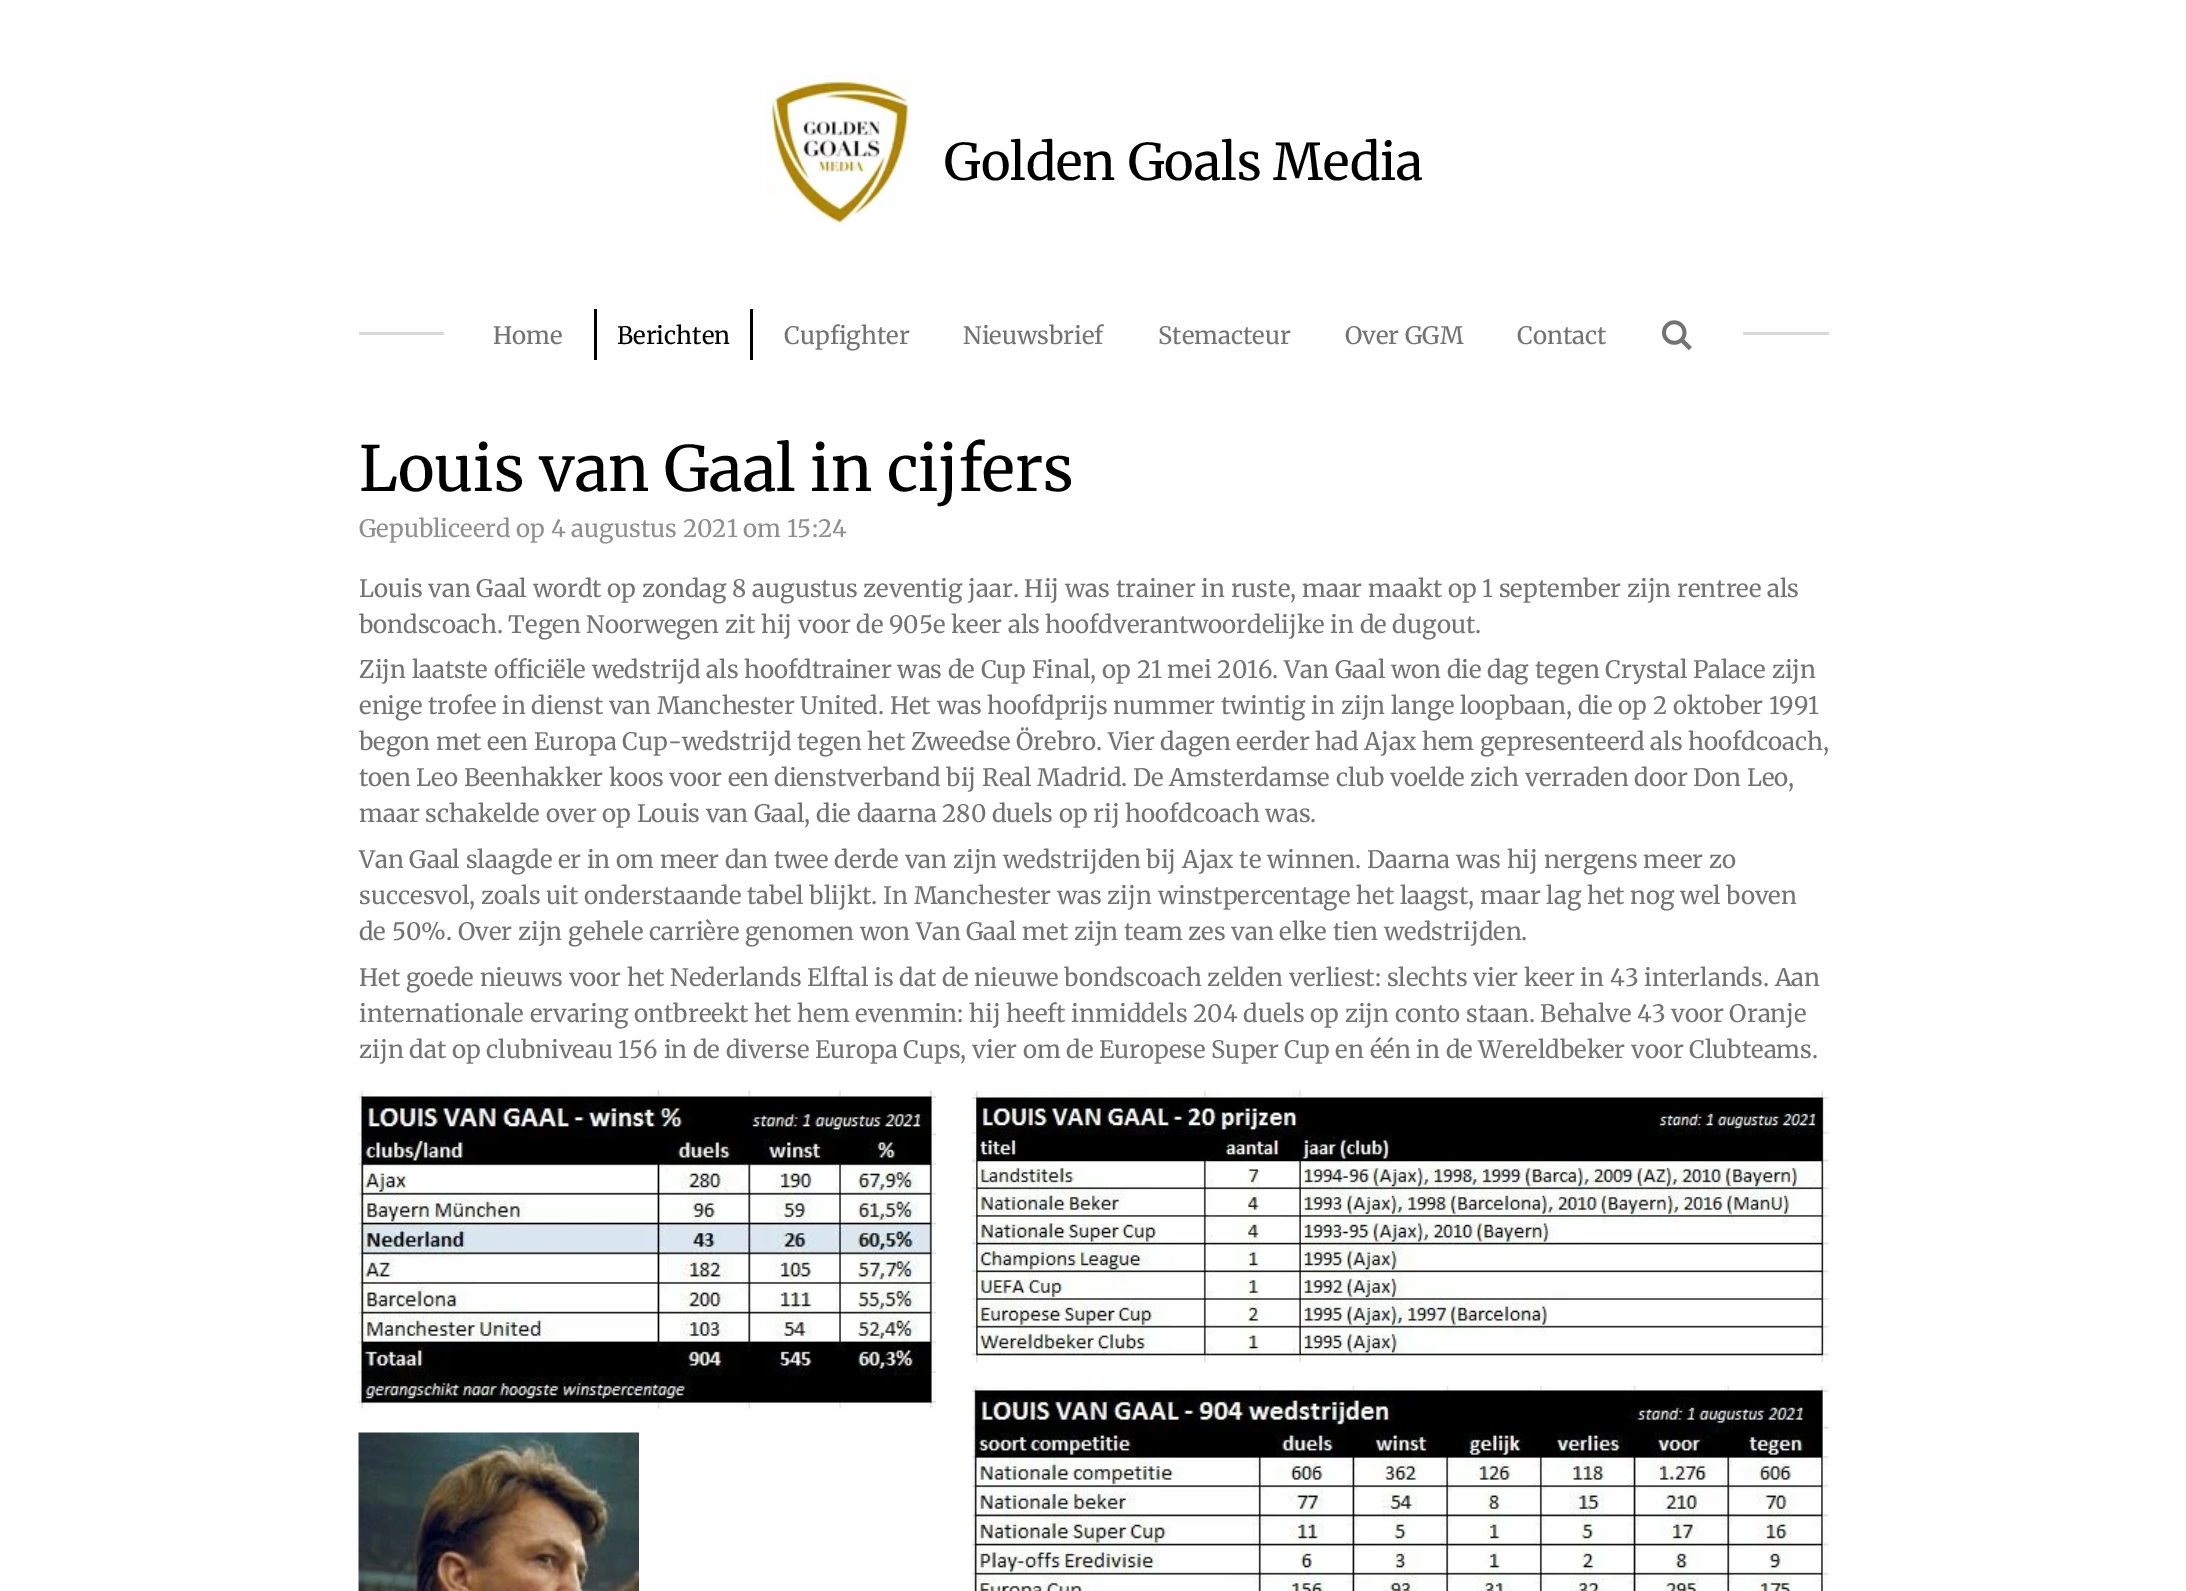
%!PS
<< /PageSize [2186 1591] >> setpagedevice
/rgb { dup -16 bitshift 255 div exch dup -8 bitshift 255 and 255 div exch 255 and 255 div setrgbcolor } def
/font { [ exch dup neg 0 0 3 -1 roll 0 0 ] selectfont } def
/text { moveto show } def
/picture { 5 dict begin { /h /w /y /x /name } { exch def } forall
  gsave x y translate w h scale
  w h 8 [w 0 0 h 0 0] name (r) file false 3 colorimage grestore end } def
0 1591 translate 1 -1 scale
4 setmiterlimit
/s1 { /Merriweather-Regular 50.5 font 16#000000 rgb } def
/s2 { /Merriweather-Regular 24 font 16#737373 rgb } def
/s3 { /Merriweather-Regular 24 font 16#000000 rgb } def
/s4 { /Merriweather-Regular 62.4 font 16#000000 rgb } def
/s5 { /Merriweather-Regular 24 font 16#8F8F8F rgb } def
16#FFFFFF rgb
0 0 2186 1591 rectfill
(pic1.raw) 765 75 146 150 picture
s1
(Golden Goals Media) 944 180 text
16#D9D9D9 rgb
359 332 85 3 rectfill
s2
(Home) 493 344 text
16#000000 rgb
750 309 3 51 rectfill
594 309 3 51 rectfill
(Berichten) 617 344 text
s2
(Cupfighter) 784 344 text
(Nieuwsbrief) 963 344 text
(Stemacteur) 1158 344 text
(Over GGM) 1345 344 text
(Contact) 1517 344 text
(pic2.raw) 1662 320 30 31 picture
16#D9D9D9 rgb
1743 332 86 3 rectfill
s4
(Louis van Gaal in cijfers) 359 491 text
s5
(Gepubliceerd op 4 augustus 2021 om 15:24) 359 537 text
s2
(Louis van Gaal wordt op zondag 8 augustus zeventig jaar. Hij was trainer in ruste, maar maakt op 1 september zijn rentree als) 359 597 text
(bondscoach. Tegen Noorwegen zit hij voor de 905e keer als hoofdverantwoordelijke in de dugout.) 359 633 text
(Zijn laatste officiële wedstrijd als hoofdtrainer was de Cup Final, op 21 mei 2016. Van Gaal won die dag tegen Crystal Palace zijn) 359 678 text
(enige trofee in dienst van Manchester United. Het was hoofdprijs nummer twintig in zijn lange loopbaan, die op 2 oktober 1991) 359 714 text
(begon met een Europa Cup-wedstrijd tegen het Zweedse Örebro. Vier dagen eerder had Ajax hem gepresenteerd als hoofdcoach,) 359 750 text
(toen Leo Beenhakker koos voor een dienstverband bij Real Madrid. De Amsterdamse club voelde zich verraden door Don Leo,) 359 786 text
(maar schakelde over op Louis van Gaal, die daarna 280 duels op rij hoofdcoach was.) 359 822 text
(Van Gaal slaagde er in om meer dan twee derde van zijn wedstrijden bij Ajax te winnen. Daarna was hij nergens meer zo) 359 868 text
(succesvol, zoals uit onderstaande tabel blijkt. In Manchester was zijn winstpercentage het laagst, maar lag het nog wel boven) 359 904 text
(de 50%. Over zijn gehele carrière genomen won Van Gaal met zijn team zes van elke tien wedstrijden.) 359 940 text
(Het goede nieuws voor het Nederlands Elftal is dat de nieuwe bondscoach zelden verliest: slechts vier keer in 43 interlands. Aan) 359 986 text
(internationale ervaring ontbreekt het hem evenmin: hij heeft inmiddels 204 duels op zijn conto staan. Behalve 43 voor Oranje) 359 1022 text
(zijn dat op clubniveau 156 in de diverse Europa Cups, vier om de Europese Super Cup en één in de Wereldbeker voor Clubteams.) 359 1058 text
(pic3.raw) 358 1090 578 319 picture
(pic4.raw) 358 1432 281 159 picture
(pic5.raw) 972 1090 857 272 picture
(pic6.raw) 972 1386 857 205 picture
showpage
